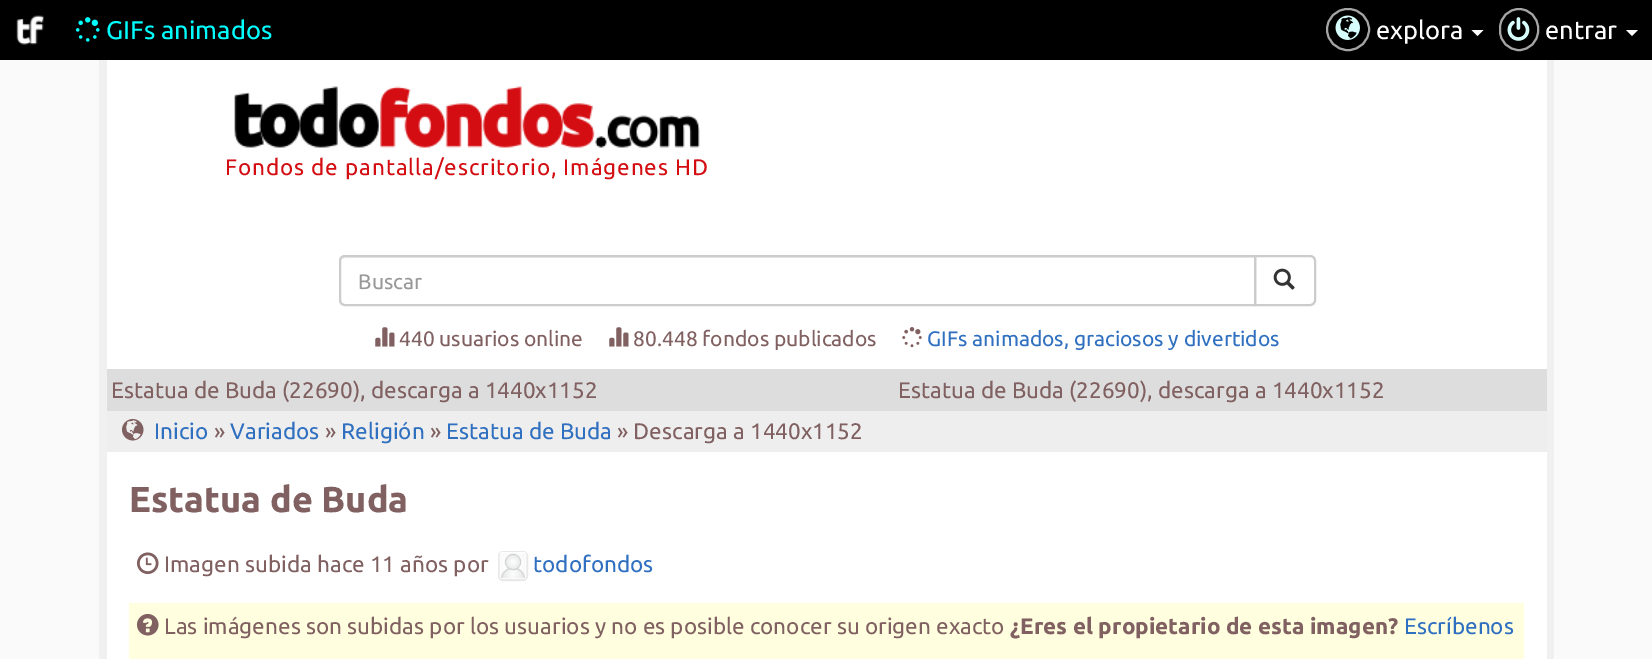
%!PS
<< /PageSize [1652 659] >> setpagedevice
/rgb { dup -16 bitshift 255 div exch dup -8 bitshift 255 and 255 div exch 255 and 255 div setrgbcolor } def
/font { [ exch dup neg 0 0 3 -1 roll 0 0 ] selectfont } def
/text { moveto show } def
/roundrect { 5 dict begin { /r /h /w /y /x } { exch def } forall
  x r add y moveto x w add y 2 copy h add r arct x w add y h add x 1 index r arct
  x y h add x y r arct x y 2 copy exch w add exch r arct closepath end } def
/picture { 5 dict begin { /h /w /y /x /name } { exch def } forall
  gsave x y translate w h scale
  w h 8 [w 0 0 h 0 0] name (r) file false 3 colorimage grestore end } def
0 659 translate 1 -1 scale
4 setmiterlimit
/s1 { /Ubuntu-Regular 25.5 font 16#00FFFF rgb } def
/s2 { /Ubuntu-Regular 25.5 font 16#FFFFFF rgb } def
/s3 { /Ubuntu-Regular 21 font 16#999999 rgb } def
/s4 { /Ubuntu-Regular 21 font 16#806060 rgb } def
/s5 { /Ubuntu-Regular 21 font 16#3070C0 rgb } def
/s6 { /Ubuntu-Regular 22.5 font 16#806060 rgb } def
/s7 { /Ubuntu-Regular 22.5 font 16#3070C0 rgb } def
/s8 { /Ubuntu-Bold 36 font 16#806060 rgb } def
/s9 { /Ubuntu-Bold 22.5 font 16#806060 rgb } def
16#FAFAFA rgb
0 0 1652 659 rectfill
16#000000 rgb
0 0 1652 60 rectfill
(pic1.raw) 16 15 28 30 picture
(pic2.raw) 75 17 25 25 picture
s1
(GIFs animados) 106 39 text
16#A5A5A5 rgb
2 setlinewidth
1327 9 42 41 20.5 roundrect stroke
(pic3.raw) 1335 15 25 25 picture
s2
(explora) 1376 39 text
1471.5 30 moveto 1483.5 30 lineto 1477.5 36 lineto closepath fill
16#A5A5A5 rgb
1500 9 38 41 19 roundrect stroke
(pic4.raw) 1507 17 23 24 picture
s2
(entrar) 1545 39 text
1626 30 moveto 1638 30 lineto 1632 36 lineto closepath fill
107 60 1440 599 rectfill
16#F0F0F0 rgb
1547 60 7 599 rectfill
99 60 8 599 rectfill
(pic5.raw) 234 86 466 62 picture
/Ubuntu-Regular 22.5 font
16#D40D12 rgb
225 175 moveto 0.9 0 (Fondos de pantalla/escritorio, Imágenes HD) ashow
16#CCCCCC rgb
1255 256 moveto 1310 256 lineto 1313 256 1315 258 1315 261 curveto 1315 300 lineto 1315 303 1313 305 1310 305 curveto 1255 305 lineto closepath stroke
16#FFFFFF rgb
345 255 moveto 1256 255 lineto 1256 306 lineto 345 306 lineto 341.5 306 339 303.5 339 300 curveto 339 261 lineto 339 257.5 341.5 255 345 255 curveto closepath fill
16#ECECEC rgb
345 258 moveto 1254 258 lineto 1254 257 lineto 346 257 lineto 344 257 343 258 342 259 curveto closepath fill
16#CCCCCC rgb
345 256 moveto 1255 256 lineto 1255 305 lineto 345 305 lineto 342 305 340 303 340 300 curveto 340 261 lineto 340 258 342 256 345 256 curveto closepath stroke
s3
(Buscar) 358 289 text
(pic6.raw) 1273 268 22 22 picture
(pic7.raw) 375 327 20 20 picture
s4
(440 usuarios online) 399 346 text
(pic7.raw) 609 327 20 20 picture
(80.448 fondos publicados) 633 346 text
(pic8.raw) 902 327 20 21 picture
s5
(GIFs animados, graciosos y divertidos) 927 346 text
16#DDDDDD rgb
107 369 1440 42 rectfill
s6
(Estatua de Buda \(22690\), descarga a 1440x1152) 111 398 text
(Estatua de Buda \(22690\), descarga a 1440x1152) 898 398 text
16#EEEEEE rgb
107 411 1440 41 rectfill
(pic9.raw) 122 419 22 22 picture
s7
(Inicio) 154 439 text
s6
(») 214 439 text
s7
(Variados) 230 439 text
s6
(») 325 439 text
s7
(Religión) 341 439 text
s6
(») 430 439 text
s7
(Estatua de Buda) 446 439 text
s6
(» Descarga a 1440x1152) 617 439 text
s8
(Estatua de Buda) 129 512 text
(pic10.raw) 136 552 23 23 picture
s6
(Imagen subida hace 11 años por) 164 572 text
16#E9E9E9 rgb
499 552 28 28 4 roundrect stroke
(pic11.raw) 499 552 28 27 picture
s7
(todofondos) 533 572 text
16#FFFFE0 rgb
129 603 1395 56 rectfill
(pic12.raw) 136 613 23 23 picture
s6
(Las imágenes son subidas por los usuarios y no es posible conocer su origen exacto) 164 634 text
s9
(¿Eres el propietario de esta imagen?) 1010 634 text
s7
(Escríbenos) 1404 634 text
showpage
